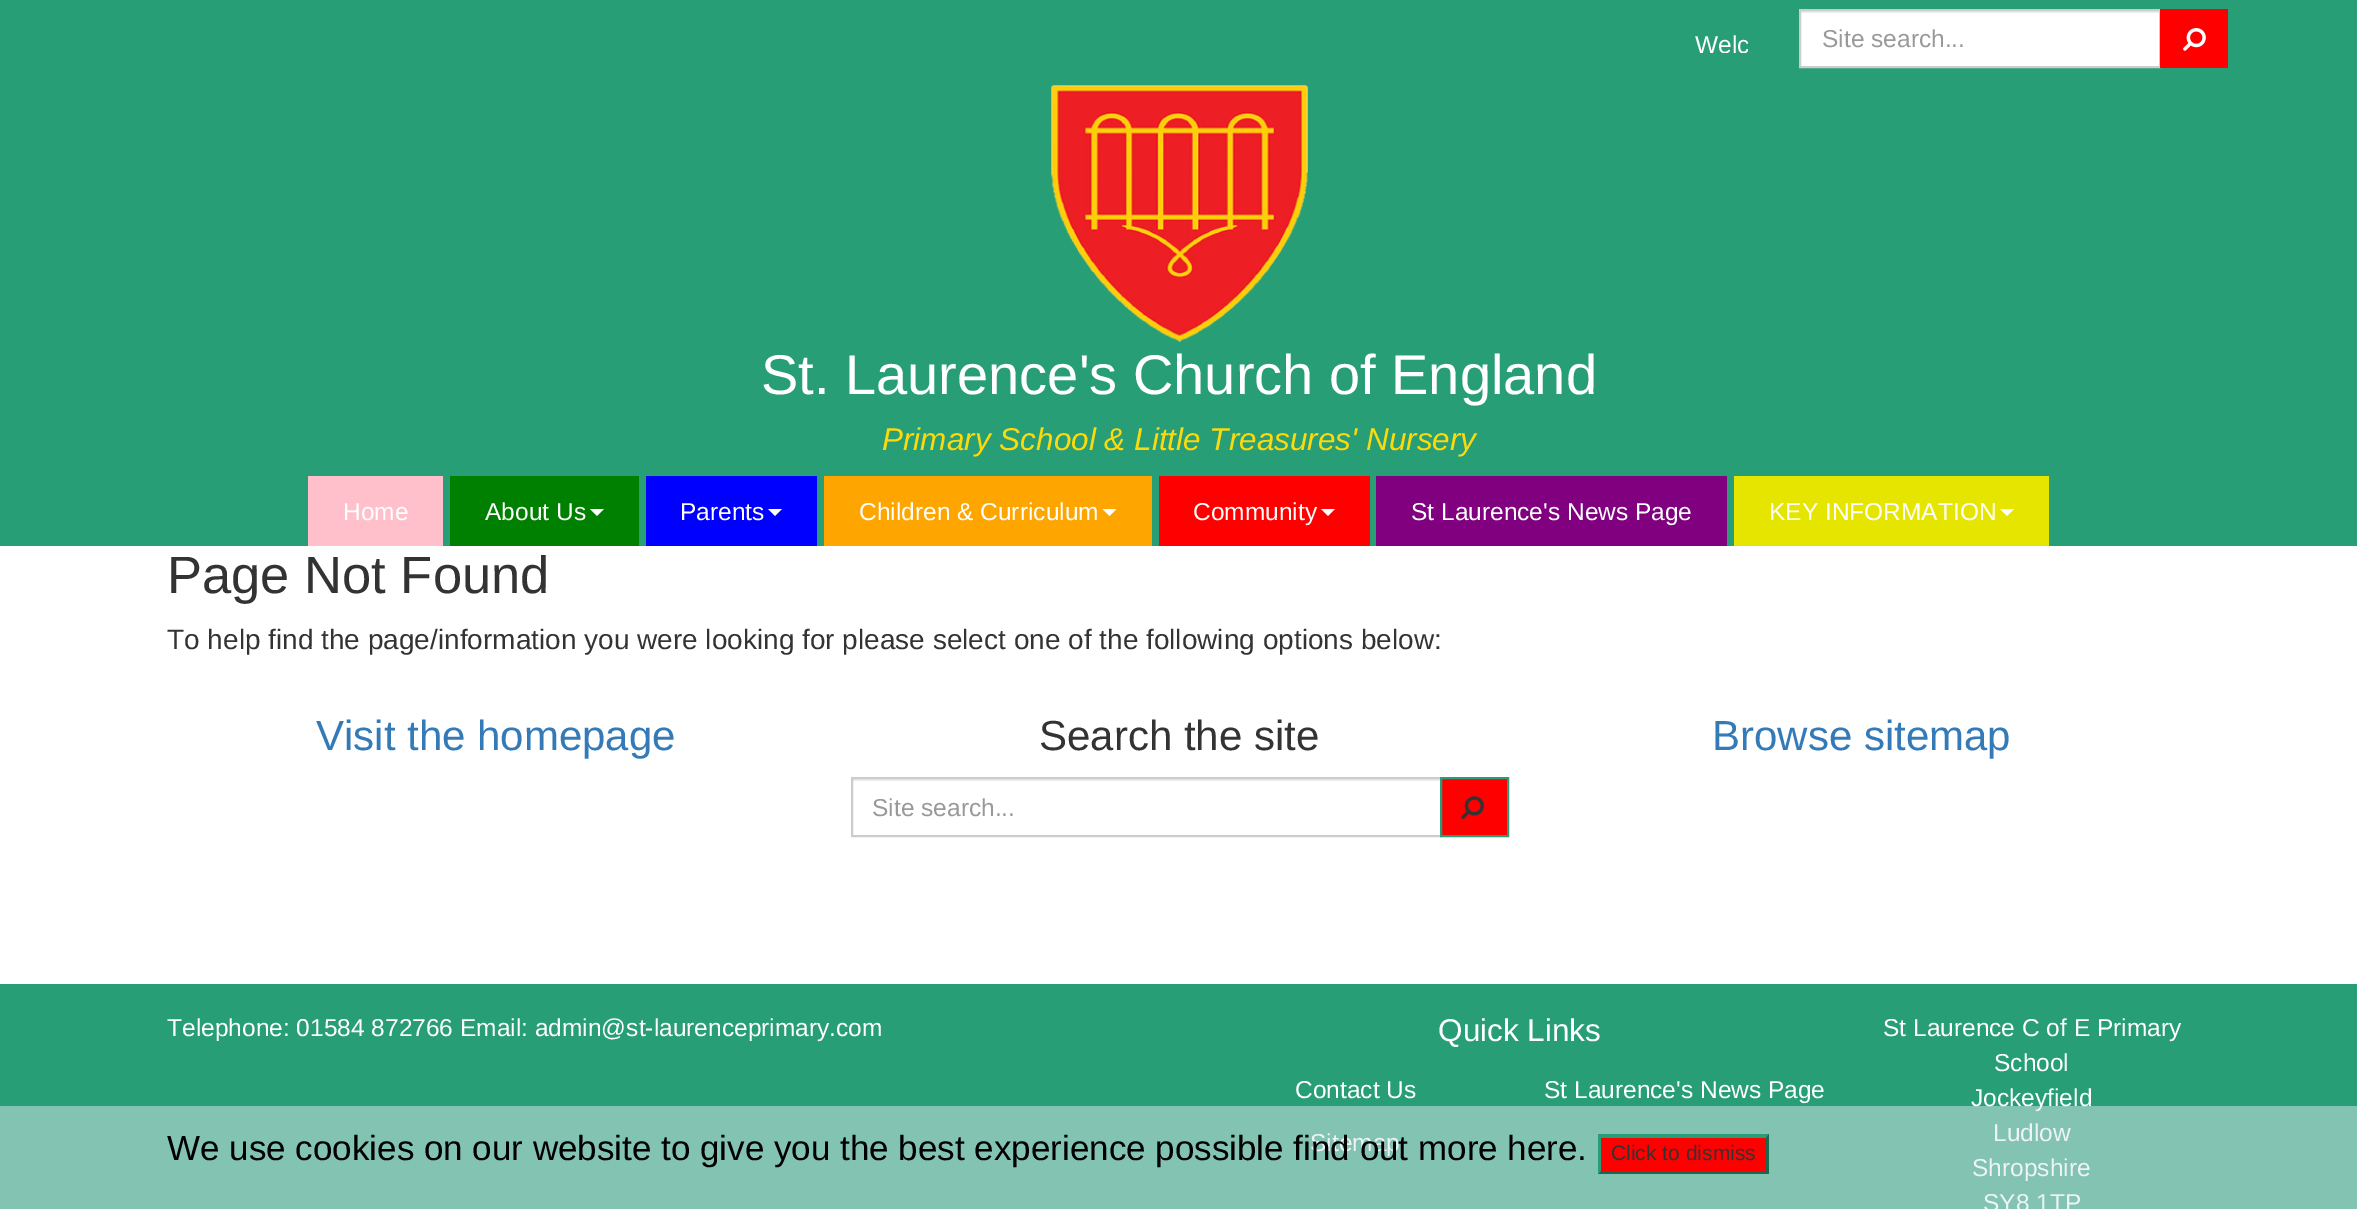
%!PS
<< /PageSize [2357 1209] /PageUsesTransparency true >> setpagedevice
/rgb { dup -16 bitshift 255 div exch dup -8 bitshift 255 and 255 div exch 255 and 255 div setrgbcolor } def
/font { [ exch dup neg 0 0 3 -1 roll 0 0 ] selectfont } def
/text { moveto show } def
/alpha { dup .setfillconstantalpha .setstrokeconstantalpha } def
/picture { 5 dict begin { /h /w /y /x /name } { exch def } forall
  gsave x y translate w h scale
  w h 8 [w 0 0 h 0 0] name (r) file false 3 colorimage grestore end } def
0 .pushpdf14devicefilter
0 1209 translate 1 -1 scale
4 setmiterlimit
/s1 { /LiberationSans-Regular 24.5 font 16#FFFFFF rgb } def
/s2 { /LiberationSans-Regular 24.5 font 16#999999 rgb } def
/s3 { /LiberationSans-Regular 56 font 16#FFFFFF rgb } def
/s4 { /LiberationSans-Italic 31.5 font 16#FEDA0B rgb } def
/s5 { /LiberationSans-Regular 52.5 font 16#333333 rgb } def
/s6 { /LiberationSans-Regular 28 font 16#333333 rgb } def
/s7 { /LiberationSans-Regular 42 font 16#337AB7 rgb } def
/s8 { /LiberationSans-Regular 42 font 16#333333 rgb } def
/s9 { /LiberationSans-Regular 31.5 font 16#FFFFFF rgb } def
/s10 { /LiberationSans-Regular 35 font 16#000000 rgb } def
/s11 { /LiberationSans-Regular 21 font 16#333333 rgb } def
16#FFFFFF rgb
0 0 2357 1209 rectfill
16#279E76 rgb
0 0 2357 546 rectfill
gsave
609 0 1139 53 rectclip
s1
(Welc) 1695 53 text
grestore
16#FFFFFF rgb
1801 13 358 53 rectfill
16#ECECEC rgb
1801 11 359 2 rectfill
16#CCCCCC rgb
2 setlinewidth
1800 10 360 57 rectstroke
s2
(Site search...) 1822 47 text
16#FF0000 rgb
2160 9 68 59 rectfill
(pic1.raw) 2183 28 23 23 picture
(pic2.raw) 1051 85 257 257 picture
s3
(St. Laurence's Church of England) 761 394 text
s4
(Primary School & Little Treasures' Nursery) 882 450 text
16#FFC0CB rgb
308 476 135 70 rectfill
s1
(Home) 343 520 text
16#008000 rgb
450 476 189 70 rectfill
s1
(About Us) 485 520 text
590 509 moveto 604 509 lineto 597 516 lineto closepath fill
16#0000FF rgb
646 476 171 70 rectfill
s1
(Parents) 680 520 text
768 509 moveto 782 509 lineto 775 516 lineto closepath fill
16#FFA500 rgb
824 476 328 70 rectfill
s1
(Children & Curriculum) 859 520 text
1102.5 509 moveto 1116.5 509 lineto 1109.5 516 lineto closepath fill
16#FF0000 rgb
1159 476 211 70 rectfill
s1
(Community) 1193 520 text
1321 509 moveto 1335 509 lineto 1328 516 lineto closepath fill
16#800080 rgb
1376 476 351 70 rectfill
s1
(St Laurence's News Page) 1411 520 text
16#E5E500 rgb
1734 476 315 70 rectfill
s1
(KEY INFORMATION) 1769 520 text
2000 509 moveto 2014 509 lineto 2007 516 lineto closepath fill
s5
(Page Not Found) 167 593 text
s6
(To help find the page/information you were looking for please select one of the following options below:) 167 649 text
s7
(Visit the homepage) 316 750 text
s8
(Search the site) 1039 750 text
16#ECECEC rgb
852 779 588 2 rectfill
16#CCCCCC rgb
852 778 589 58 rectstroke
s2
(Site search...) 872 816 text
16#FF0000 rgb
1441 778 moveto 1508 778 lineto 1508 836 lineto 1441 836 lineto closepath gsave fill grestore
16#279E76 rgb
stroke
(pic3.raw) 1461 796 23 23 picture
s7
(Browse sitemap) 1712 750 text
16#279E76 rgb
0 984 2357 225 rectfill
s1
(Telephone: 01584 872766 Email: admin@st-laurenceprimary.com) 167 1036 text
s9
(Quick Links) 1438 1041 text
s1
(Contact Us) 1295 1098 text
(St Laurence's News Page) 1544 1098 text
(Sitemap) 1310 1151 text
(St Laurence C of E Primary) 1883 1036 text
(School) 1994 1071 text
(Jockeyfield) 1971 1106 text
(Ludlow) 1993 1141 text
(Shropshire) 1972 1176 text
(SY8 1TP) 1983 1211 text
0.5 alpha
16#DCE7EE rgb
0 1106 2357 103 rectfill
1 alpha
s10
(We use cookies on our website to give you the best experience possible find out more here.) 167 1160 text
16#FF0000 rgb
1598 1134 171 40 rectfill
16#279E76 rgb
1598 1134 moveto 1769 1134 lineto 1766 1138 lineto 1601 1138 lineto closepath fill
16#1A694F rgb
1769 1134 moveto 1769 1174 lineto 1766 1171 lineto 1766 1138 lineto closepath fill
1769 1174 moveto 1598 1174 lineto 1601 1171 lineto 1766 1171 lineto closepath fill
16#279E76 rgb
1598 1174 moveto 1598 1134 lineto 1601 1138 lineto 1601 1171 lineto closepath fill
s11
(Click to dismiss) 1611 1160 text
.poppdf14devicefilter showpage
